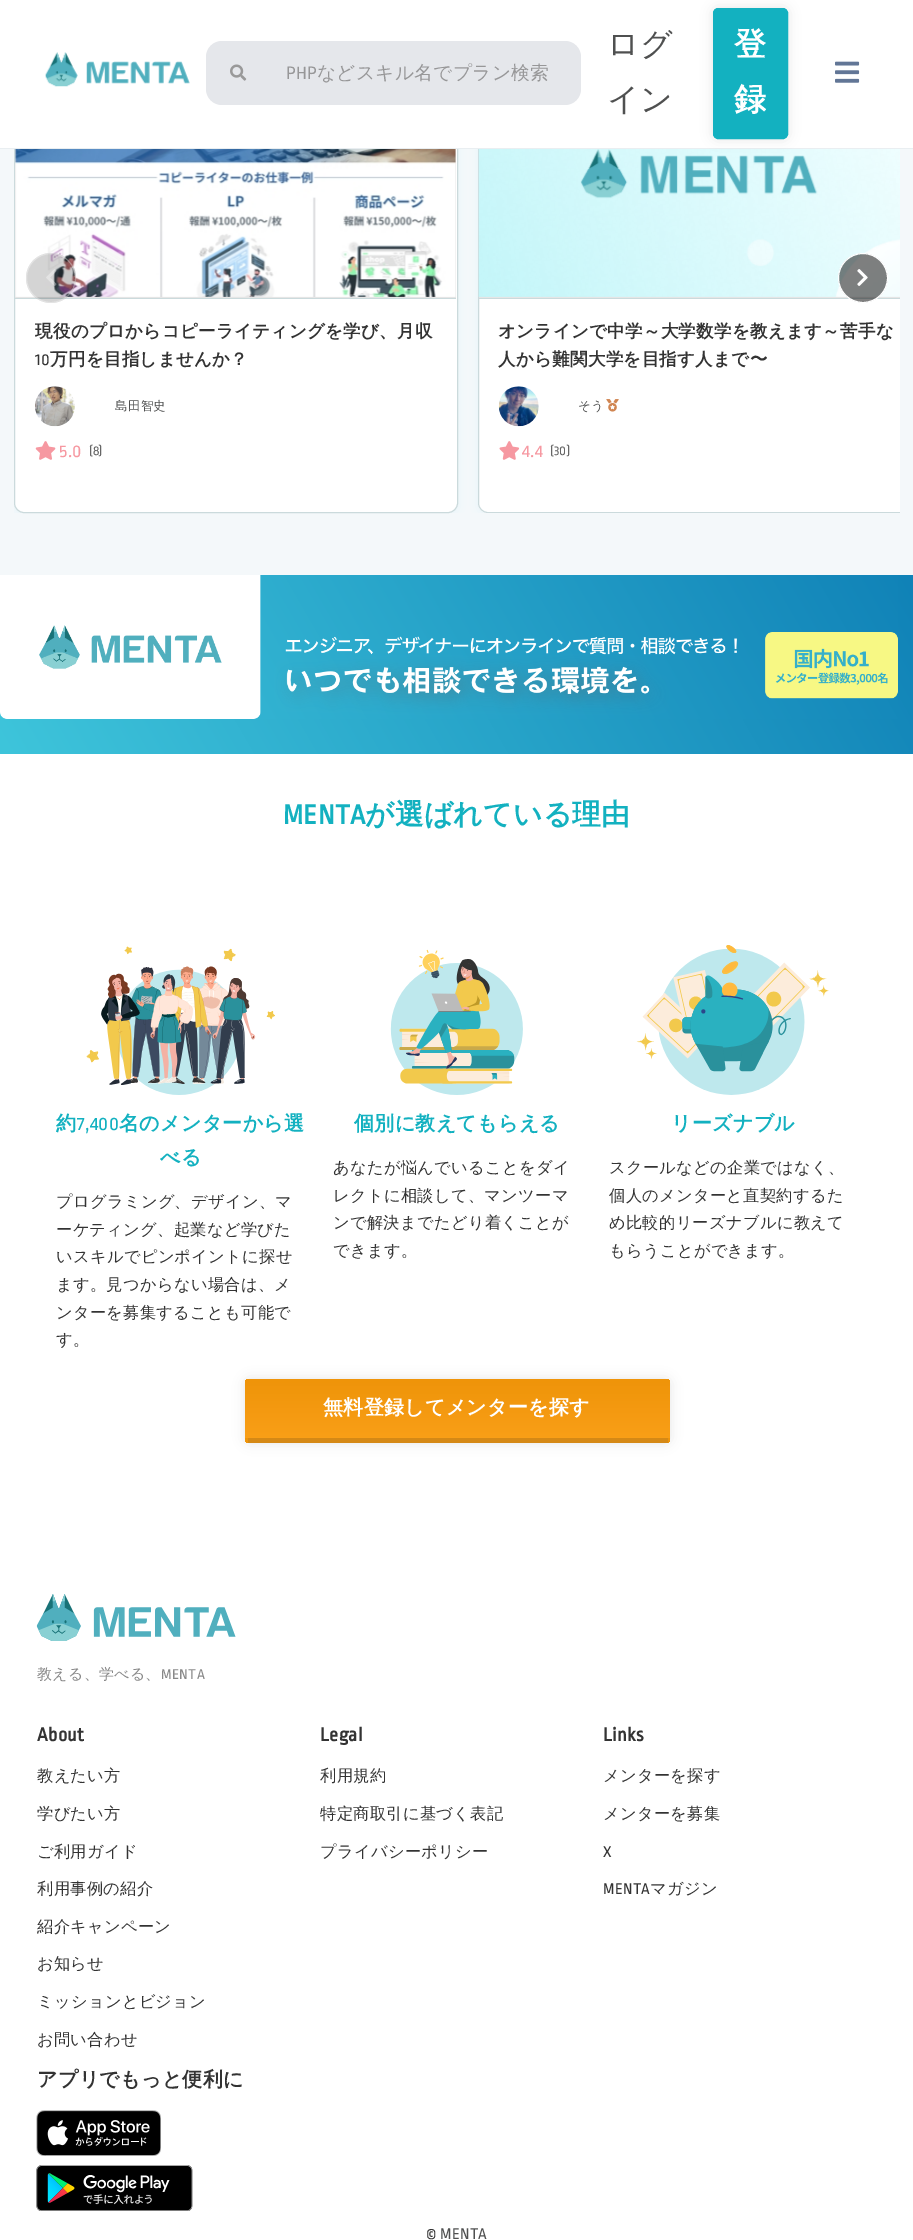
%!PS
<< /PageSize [913 2240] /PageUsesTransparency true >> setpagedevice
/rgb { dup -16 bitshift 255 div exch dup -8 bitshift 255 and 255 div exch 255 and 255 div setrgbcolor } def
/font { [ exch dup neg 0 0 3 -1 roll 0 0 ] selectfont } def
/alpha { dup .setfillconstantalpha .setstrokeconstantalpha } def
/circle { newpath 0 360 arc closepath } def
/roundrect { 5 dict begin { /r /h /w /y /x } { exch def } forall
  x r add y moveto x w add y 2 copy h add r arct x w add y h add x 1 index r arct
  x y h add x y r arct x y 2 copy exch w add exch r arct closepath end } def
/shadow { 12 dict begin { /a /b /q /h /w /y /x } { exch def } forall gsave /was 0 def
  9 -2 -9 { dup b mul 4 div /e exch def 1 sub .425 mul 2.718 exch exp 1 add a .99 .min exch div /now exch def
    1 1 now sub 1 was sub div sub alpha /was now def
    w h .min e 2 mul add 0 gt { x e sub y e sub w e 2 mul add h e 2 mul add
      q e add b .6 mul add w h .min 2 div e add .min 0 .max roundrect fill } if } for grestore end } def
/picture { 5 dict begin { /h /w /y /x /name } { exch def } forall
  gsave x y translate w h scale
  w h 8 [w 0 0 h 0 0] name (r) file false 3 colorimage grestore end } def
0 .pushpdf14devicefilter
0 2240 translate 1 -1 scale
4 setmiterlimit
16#F4F8FA rgb
0 0 913 2240 rectfill
gsave
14 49 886 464 rectclip
16#13B1C0 rgb
14 51 444 464 10 5 0.06 shadow
grestore
16#FFFFFF rgb
14.5 49.5 443 463 9.5 roundrect gsave fill grestore
16#CBDADC rgb
stroke
gsave
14 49 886 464 rectclip
16#13B1C0 rgb
478 51 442 464 10 5 0.06 shadow
grestore
16#FFFFFF rgb
488 49 moveto 900 49 lineto 900 513 lineto 488 513 lineto 482.5 513 478 508.5 478 503 curveto 478 59 lineto 478 53.5 482.5 49 488 49 curveto closepath fill
gsave
14 49 886 464 rectclip
16#CBDADC rgb
478.5 49.5 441 463 9.5 roundrect stroke
grestore
0 0 913 148 rectfill
16#E9EEF1 rgb
0 148 913 1 rectfill
(pic1.raw) 45 52 145 35 picture
16#E5E7EB rgb
206 41 375 64 16 roundrect fill
(pic2.raw) 230 64 17 17 picture
/RopaSans-Regular 18.75 font
16#979798 rgb
286 79 moveto 0.3 0 (PHP) ashow
/WenQuanYiZenHei-Medium 18.75 font
317 79 moveto 0.3 0 (などスキル名でプラン検索) ashow
/WenQuanYiZenHei-Medium 32 font
16#4F5050 rgb
607 55 moveto 0.3 0 (ログ) ashow
607 110 moveto 0.3 0 (イン) ashow
16#E5E5E5 rgb
479 296 421 2 rectfill
(pic9.raw) 478 149 422 148 picture
16#000000 rgb
713 8 75 131 5 6 0.1 shadow
16#13B1C0 rgb
713.5 8.5 74 130 4.5 roundrect gsave fill grestore
stroke
/WenQuanYiZenHei-Bold 32 font
16#FFFFFF rgb
734 55 moveto 0.3 0 (登) ashow
734 110 moveto 0.3 0 (録) ashow
(pic3.raw) 835 61 25 22 picture
16#E5E5E5 rgb
15 149 441 149 rectfill
(pic6.raw) 15 149 441 148 picture
16#CBDADC rgb
15 298 441 1 rectfill
0.17 alpha
16#000000 rgb
51 278 25 circle fill
0.35 alpha
16#FFFFFF rgb
51 278 24.5 circle stroke
1 alpha
(pic4.raw) 46 269 11 17 picture
16#CBDADC rgb
479 298 421 1 rectfill
0.5 alpha
16#000000 rgb
863 278 24.5 circle fill
1 alpha
16#FFFFFF rgb
863 278 24.5 circle stroke
(pic5.raw) 857 269 11 17 picture
/WenQuanYiZenHei-Bold 17.5 font
16#333333 rgb
35 337 moveto 0.3 0 (現役のプロからコピーライティングを学び、月収) ashow
/RopaSans-Regular 17.5 font
35 365 moveto 0.3 0 (10) ashow
/WenQuanYiZenHei-Bold 17.5 font
50 365 moveto 0.3 0 (万円を目指しませんか？) ashow
(pic7.raw) 35 386 40 41 picture
/WenQuanYiZenHei-Medium 12.5 font
16#4F5050 rgb
115 410 moveto 0.3 0 (島田智史) ashow
(pic8.raw) 35 441 21 19 picture
/RopaSans-Regular 18.75 font
16#F698A1 rgb
59 457 moveto 0.3 0 (5.0) ashow
/RopaSans-Regular 14 font
16#666666 rgb
89 455 moveto 0.3 0 (\(8\)) ashow
/WenQuanYiZenHei-Bold 17.5 font
16#333333 rgb
498 337 moveto 0.3 0 (オンラインで中学～大学数学を教えます～苦手な) ashow
498 365 moveto 0.3 0 (人から難関大学を目指す人まで〜) ashow
(pic10.raw) 498 386 41 41 picture
/WenQuanYiZenHei-Medium 12.5 font
16#4F5050 rgb
578 410 moveto 0.3 0 (そう) ashow
(pic11.raw) 606 399 13 13 picture
(pic12.raw) 499 441 21 19 picture
/RopaSans-Regular 18.75 font
16#F698A1 rgb
522 457 moveto 0.3 0 (4.4) ashow
/RopaSans-Regular 14 font
16#666666 rgb
550 455 moveto 0.3 0 (\(30\)) ashow
16#FFFFFF rgb
0 754 913 1486 rectfill
gsave 0 575 moveto 913 575 lineto 913 754 lineto 0 754 lineto closepath clip newpath
<< /ShadingType 2 /ColorSpace /DeviceRGB /Coords [838 444 76 885] /Extend [true true] /Function << /FunctionType 2 /Domain [0 1] /C0 [0.063 0.51 0.718] /C1 [0.243 0.773 0.859] /N 1 >> >> shfill grestore
(pic13.raw) 0 575 898 144 picture
/RopaSans-Bold 28.75 font
16#13B1C0 rgb
283 824 moveto 0.3 0 (MENTA) ashow
/WenQuanYiZenHei-Bold 28.75 font
365 824 moveto 0.3 0 (が選ばれている理由) ashow
(pic14.raw) 86 946 189 149 picture
/WenQuanYiZenHei-Bold 20 font
56 1130 moveto 0.3 0 (約) ashow
/RopaSans-Regular 20 font
77 1130 moveto 0.3 0 (7,400) ashow
/WenQuanYiZenHei-Bold 20 font
119 1130 moveto 0.3 0 (名のメンターから選) ashow
160 1164 moveto 0.3 0 (べる) ashow
/WenQuanYiZenHei-Medium 16.25 font
16#333333 rgb
56 1207 moveto 0.3 0 (プログラミング、デザイン、マ) ashow
56 1235 moveto 0.3 0 (ーケティング、起業など学びた) ashow
56 1262 moveto 0.3 0 (いスキルでピンポイントに探せ) ashow
56 1290 moveto 0.3 0 (ます。見つからない場合は、メ) ashow
56 1318 moveto 0.3 0 (ンターを募集することも可能で) ashow
56 1345 moveto 0.3 0 (す。) ashow
(pic15.raw) 390 949 133 146 picture
/WenQuanYiZenHei-Bold 20 font
16#13B1C0 rgb
354 1130 moveto 0.3 0 (個別に教えてもらえる) ashow
/WenQuanYiZenHei-Medium 16.25 font
16#333333 rgb
333 1173 moveto 0.3 0 (あなたが悩んでいることをダイ) ashow
333 1201 moveto 0.3 0 (レクトに相談して、マンツーマ) ashow
333 1228 moveto 0.3 0 (ンで解決までたどり着くことが) ashow
333 1256 moveto 0.3 0 (できます。) ashow
(pic16.raw) 636 945 193 150 picture
/WenQuanYiZenHei-Bold 20 font
16#13B1C0 rgb
671 1130 moveto 0.3 0 (リーズナブル) ashow
/WenQuanYiZenHei-Medium 16.25 font
16#333333 rgb
609 1173 moveto 0.3 0 (スクールなどの企業ではなく、) ashow
609 1201 moveto 0.3 0 (個人のメンターと直契約するた) ashow
609 1228 moveto 0.3 0 (め比較的リーズナブルに教えて) ashow
609 1256 moveto 0.3 0 (もらうことができます。) ashow
16#000000 rgb
245 1379 425 64 5 6 0.1 shadow
gsave 250 1379 moveto 665 1379 lineto 668 1379 670 1381 670 1384 curveto 670 1438 lineto 245 1438 lineto 245 1384 lineto 245 1381 247 1379 250 1379 curveto closepath clip newpath
<< /ShadingType 2 /ColorSpace /DeviceRGB /Coords [458 1379 458 1438] /Extend [true true] /Function << /FunctionType 3 /Domain [0 1] /Functions [<< /FunctionType 2 /Domain [0 1] /C0 [0.937 0.58 0.035] /C1 [0.937 0.58 0.035] /N 1 >> << /FunctionType 2 /Domain [0 1] /C0 [0.937 0.58 0.035] /C1 [0.976 0.624 0.09] /N 1 >>] /Bounds [0.01] /Encode [0 1 0 1] >> >> shfill grestore
gsave 245 1438 moveto 670 1438 lineto 670 1441 668 1443 665 1443 curveto 250 1443 lineto 247 1443 245 1441 245 1438 curveto closepath clip newpath
<< /ShadingType 2 /ColorSpace /DeviceRGB /Coords [458 1438 458 1496] /Extend [true true] /Function << /FunctionType 3 /Domain [0 1] /Functions [<< /FunctionType 2 /Domain [0 1] /C0 [0.937 0.58 0.035] /C1 [0.937 0.58 0.035] /N 1 >> << /FunctionType 2 /Domain [0 1] /C0 [0.937 0.58 0.035] /C1 [0.976 0.624 0.09] /N 1 >>] /Bounds [0.01] /Encode [0 1 0 1] >> >> shfill grestore
16#D58916 rgb
248 1438 420 5 rectfill
/WenQuanYiZenHei-Bold 20 font
16#FFFFFF rgb
323 1414 moveto 0.3 0 (無料登録してメンターを探す) ashow
(pic17.raw) 36 1594 200 47 picture
/WenQuanYiZenHei-Medium 15 font
16#888888 rgb
37 1679 moveto 0.3 0 (教える、学べる、) ashow
/RopaSans-Regular 15 font
161 1679 moveto 0.3 0 (MENTA) ashow
/RopaSans-Bold 20 font
16#333333 rgb
37 1741 moveto 0.3 0 (About) ashow
/WenQuanYiZenHei-Medium 16.25 font
37 1781 moveto 0.3 0 (教えたい方) ashow
37 1819 moveto 0.3 0 (学びたい方) ashow
37 1857 moveto 0.3 0 (ご利用ガイド) ashow
37 1894 moveto 0.3 0 (利用事例の紹介) ashow
37 1932 moveto 0.3 0 (紹介キャンペーン) ashow
37 1969 moveto 0.3 0 (お知らせ) ashow
37 2007 moveto 0.3 0 (ミッションとビジョン) ashow
37 2045 moveto 0.3 0 (お問い合わせ) ashow
/RopaSans-Bold 20 font
320 1741 moveto 0.3 0 (Legal) ashow
/WenQuanYiZenHei-Medium 16.25 font
320 1781 moveto 0.3 0 (利用規約) ashow
320 1819 moveto 0.3 0 (特定商取引に基づく表記) ashow
320 1857 moveto 0.3 0 (プライバシーポリシー) ashow
/RopaSans-Bold 20 font
603 1741 moveto 0.3 0 (Links) ashow
/WenQuanYiZenHei-Medium 16.25 font
603 1781 moveto 0.3 0 (メンターを探す) ashow
603 1819 moveto 0.3 0 (メンターを募集) ashow
/RopaSans-Regular 16.25 font
603 1857 moveto 0.3 0 (X) ashow
603 1894 moveto 0.3 0 (MENTA) ashow
/WenQuanYiZenHei-Medium 16.25 font
650 1894 moveto 0.3 0 (マガジン) ashow
/WenQuanYiZenHei-Bold 20 font
37 2086 moveto 0.3 0 (アプリでもっと便利に) ashow
(pic18.raw) 36 2110 125 46 picture
(pic19.raw) 36 2165 157 46 picture
/RopaSans-Regular 16.25 font
426 2239 moveto 0.3 0 (©) ashow
16#4F5050 rgb
440 2239 moveto 0.3 0 (MENTA) ashow
.poppdf14devicefilter showpage
